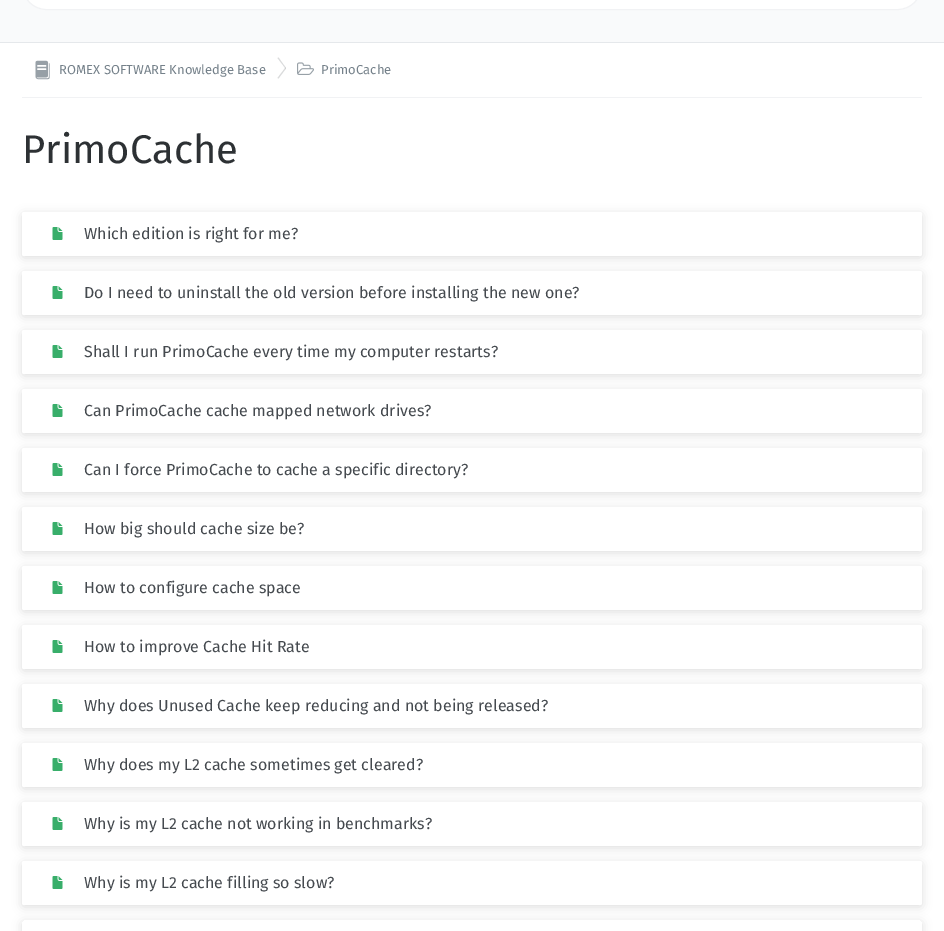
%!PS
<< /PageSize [944 931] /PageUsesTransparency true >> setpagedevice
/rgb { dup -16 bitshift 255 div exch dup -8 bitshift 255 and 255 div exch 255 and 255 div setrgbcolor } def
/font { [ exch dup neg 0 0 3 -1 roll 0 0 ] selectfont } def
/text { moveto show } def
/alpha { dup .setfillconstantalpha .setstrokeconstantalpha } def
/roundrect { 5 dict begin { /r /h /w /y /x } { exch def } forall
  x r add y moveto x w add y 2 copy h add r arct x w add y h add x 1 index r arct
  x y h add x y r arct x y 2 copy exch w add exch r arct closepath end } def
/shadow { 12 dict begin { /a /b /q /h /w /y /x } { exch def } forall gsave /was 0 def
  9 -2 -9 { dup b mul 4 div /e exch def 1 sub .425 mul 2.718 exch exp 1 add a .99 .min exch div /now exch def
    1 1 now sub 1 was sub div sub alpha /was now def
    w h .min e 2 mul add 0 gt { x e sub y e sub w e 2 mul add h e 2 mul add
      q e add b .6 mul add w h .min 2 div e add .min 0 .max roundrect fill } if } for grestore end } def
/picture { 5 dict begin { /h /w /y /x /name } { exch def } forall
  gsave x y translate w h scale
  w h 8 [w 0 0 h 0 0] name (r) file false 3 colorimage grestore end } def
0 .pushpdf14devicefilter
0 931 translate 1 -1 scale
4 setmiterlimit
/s1 { /FiraSans-Regular 13 font 16#75818A rgb } def
/s2 { /FiraSans-Regular 40 font 16#2D3134 rgb } def
/s3 { /FiraSans-Regular 16 font 16#454A4F rgb } def
16#FFFFFF rgb
0 0 944 931 rectfill
16#F9FAFB rgb
0 0 944 42 rectfill
16#E5E8EB rgb
0 42 944 1 rectfill
16#FFFFFF rgb
22.5 -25.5 899 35 24 roundrect gsave fill grestore
16#F1F2F4 rgb
stroke
22 97 900 1 rectfill
(pic1.raw) 35 60 15 20 picture
s1
(ROMEX SOFTWARE Knowledge Base) 59 74 text
16#DADBDC rgb
277.5 58 moveto 278.5 57.5 lineto 286 68 lineto 285.5 68.5 lineto closepath fill
0.2 alpha
16#454A4F rgb
285.5 67.5 moveto 286 68.5 lineto 278.5 78.5 lineto 277.5 78 lineto closepath fill
1 alpha
(pic2.raw) 297 62 17 13 picture
s1
(PrimoCache) 321 74 text
s2
(PrimoCache) 22 163 text
16#000000 rgb
22 214 900 44 2 5 0.13 shadow
16#FFFFFF rgb
22 212 900 44 2 roundrect fill
(pic3.raw) 52 227 11 13 picture
s3
(Which edition is right for me?) 84 239 text
16#000000 rgb
22 273 900 44 2 5 0.13 shadow
16#FFFFFF rgb
22 271 900 44 2 roundrect fill
(pic3.raw) 52 286 11 13 picture
s3
(Do I need to uninstall the old version before installing the new one?) 84 298 text
16#000000 rgb
22 332 900 44 2 5 0.13 shadow
16#FFFFFF rgb
22 330 900 44 2 roundrect fill
(pic3.raw) 52 345 11 13 picture
s3
(Shall I run PrimoCache every time my computer restarts?) 84 357 text
16#000000 rgb
22 391 900 44 2 5 0.13 shadow
16#FFFFFF rgb
22 389 900 44 2 roundrect fill
(pic4.raw) 52 404 11 13 picture
s3
(Can PrimoCache cache mapped network drives?) 84 416 text
16#000000 rgb
22 450 900 44 2 5 0.13 shadow
16#FFFFFF rgb
22 448 900 44 2 roundrect fill
(pic3.raw) 52 463 11 13 picture
s3
(Can I force PrimoCache to cache a specific directory?) 84 475 text
16#000000 rgb
22 509 900 44 2 5 0.13 shadow
16#FFFFFF rgb
22 507 900 44 2 roundrect fill
(pic3.raw) 52 522 11 13 picture
s3
(How big should cache size be?) 84 534 text
16#000000 rgb
22 568 900 44 2 5 0.13 shadow
16#FFFFFF rgb
22 566 900 44 2 roundrect fill
(pic3.raw) 52 581 11 13 picture
s3
(How to configure cache space) 84 593 text
16#000000 rgb
22 627 900 44 2 5 0.13 shadow
16#FFFFFF rgb
22 625 900 44 2 roundrect fill
(pic3.raw) 52 640 11 13 picture
s3
(How to improve Cache Hit Rate) 84 652 text
16#000000 rgb
22 686 900 44 2 5 0.13 shadow
16#FFFFFF rgb
22 684 900 44 2 roundrect fill
(pic3.raw) 52 699 11 13 picture
s3
(Why does Unused Cache keep reducing and not being released?) 84 711 text
16#000000 rgb
22 745 900 44 2 5 0.13 shadow
16#FFFFFF rgb
22 743 900 44 2 roundrect fill
(pic3.raw) 52 758 11 13 picture
s3
(Why does my L2 cache sometimes get cleared?) 84 770 text
16#000000 rgb
22 804 900 44 2 5 0.13 shadow
16#FFFFFF rgb
22 802 900 44 2 roundrect fill
(pic3.raw) 52 817 11 13 picture
s3
(Why is my L2 cache not working in benchmarks?) 84 829 text
16#000000 rgb
22 863 900 44 2 5 0.13 shadow
16#FFFFFF rgb
22 861 900 44 2 roundrect fill
(pic3.raw) 52 876 11 13 picture
s3
(Why is my L2 cache filling so slow?) 84 888 text
gsave
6 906 moveto 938 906 lineto 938 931 lineto 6 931 lineto closepath 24 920 moveto 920 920 lineto 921 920 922 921 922 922 curveto 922 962 lineto 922 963 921 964 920 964 curveto 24 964 lineto 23 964 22 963 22 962 curveto 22 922 lineto 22 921 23 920 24 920 curveto closepath eoclip newpath
16#000000 rgb
22 922 900 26 2 5 0.13 shadow
grestore
.poppdf14devicefilter showpage
